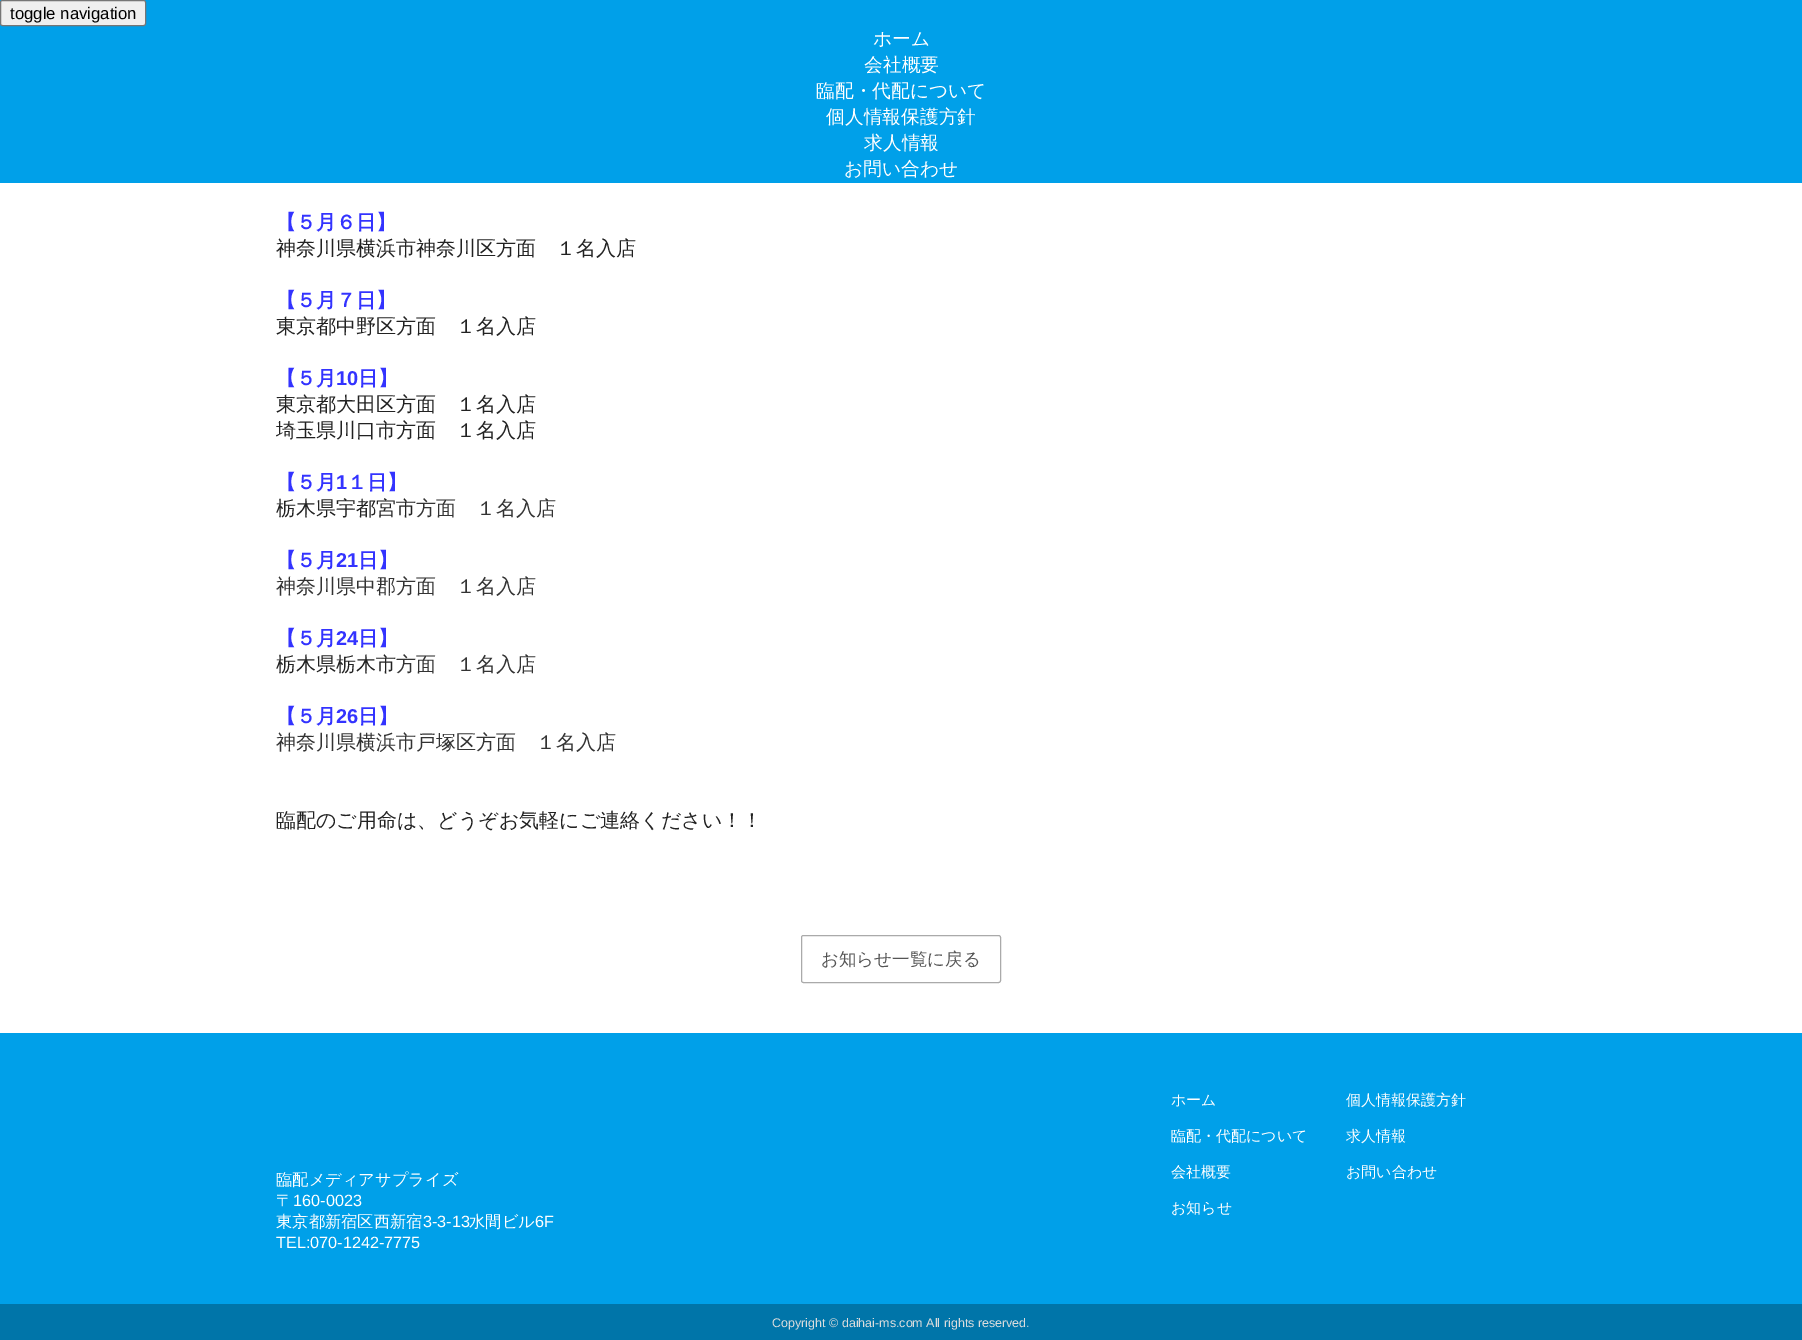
%!PS
<< /PageSize [1802 1340] >> setpagedevice
/rgb { dup -16 bitshift 255 div exch dup -8 bitshift 255 and 255 div exch 255 and 255 div setrgbcolor } def
/font { [ exch dup neg 0 0 3 -1 roll 0 0 ] selectfont } def
/text { moveto show } def
/roundrect { 5 dict begin { /r /h /w /y /x } { exch def } forall
  x r add y moveto x w add y 2 copy h add r arct x w add y h add x 1 index r arct
  x y h add x y r arct x y 2 copy exch w add exch r arct closepath end } def
0 1340 translate 1 -1 scale
4 setmiterlimit
/s1 { /LiberationSans-Regular 16.75 font 16#000000 rgb } def
/s2 { /WenQuanYiZenHei-Medium 18.75 font 16#FFFFFF rgb } def
/s3 { /WenQuanYiZenHei-Bold 20 font 16#3333FF rgb } def
/s4 { /WenQuanYiZenHei-Medium 20 font 16#222222 rgb } def
/s5 { /LiberationSans-Bold 20 font 16#3333FF rgb } def
/s6 { /WenQuanYiZenHei-Medium 20 font 16#333333 rgb } def
/s7 { /WenQuanYiZenHei-Medium 17.5 font 16#555555 rgb } def
/s8 { /WenQuanYiZenHei-Medium 16.25 font 16#FFFFFF rgb } def
/s9 { /LiberationSans-Regular 16.25 font 16#FFFFFF rgb } def
/s10 { /WenQuanYiZenHei-Medium 15 font 16#FFFFFF rgb } def
/s11 { /LiberationSans-Regular 12.5 font 16#DDDDDD rgb } def
16#FFFFFF rgb
0 0 1802 1340 rectfill
16#00A0E9 rgb
0 0 1802 183 rectfill
16#EFEFEF rgb
0.5 0.5 145 25 2 roundrect gsave fill grestore
16#767676 rgb
stroke
s1
(toggle navigation) 10 19 text
s2
(ホーム) 873 45 text
(会社概要) 864 71 text
(臨配・代配について) 816 97 text
(個人情報保護方針) 826 123 text
(求人情報) 864 149 text
(お問い合わせ) 844 175 text
s3
(【５月６日】) 276 229 text
s4
(神奈川県横浜市神奈川区方面　１名入店) 276 255 text
s3
(【５月７日】) 276 307 text
s4
(東京都中野区方面　１名入店) 276 333 text
s3
(【５月) 276 385 text
s5
(10) 336 385 text
s3
(日】) 358 385 text
s4
(東京都大田区方面　１名入店) 276 411 text
(埼玉県川口市方面　１名入店) 276 437 text
s3
(【５月) 276 489 text
s5
(1) 336 489 text
s3
(１日】) 347 489 text
s4
(栃木県宇都宮市) 276 515 text
s6
(方面　１名入店) 416 515 text
s3
(【５月) 276 567 text
s5
(21) 336 567 text
s3
(日】) 358 567 text
s6
(神奈川県中郡方面　１名入店) 276 593 text
s3
(【５月) 276 645 text
s5
(24) 336 645 text
s3
(日】) 358 645 text
s4
(栃木県栃木市) 276 671 text
s6
(方面　１名入店) 396 671 text
s3
(【５月) 276 723 text
s5
(26) 336 723 text
s3
(日】) 358 723 text
s6
(神奈川県横浜市戸塚区方面　１名入店) 276 749 text
s4
(臨配のご用命は、どうぞお気軽にご連絡ください！！) 276 827 text
16#AAAAAA rgb
801.5 935.5 199 47 2 roundrect stroke
s7
(お知らせ一覧に戻る) 821 965 text
16#00A0E9 rgb
0 1033 1802 271 rectfill
s8
(臨配メディアサプライズ) 276 1185 text
(〒) 276 1206 text
s9
(160-0023) 293 1206 text
s8
(東京都新宿区西新宿) 276 1227 text
s9
(3-3-13) 423 1227 text
s8
(水間ビル) 469 1227 text
s9
(6F) 535 1227 text
(TEL:070-1242-7775) 276 1248 text
s10
(ホーム) 1171 1105 text
(臨配・代配について) 1171 1141 text
(会社概要) 1171 1177 text
(お知らせ) 1171 1213 text
(個人情報保護方針) 1346 1105 text
(求人情報) 1346 1141 text
(お問い合わせ) 1346 1177 text
16#0075A9 rgb
0 1304 1802 36 rectfill
s11
(Copyright © daihai-ms.com All rights reserved.) 772 1327 text
showpage
